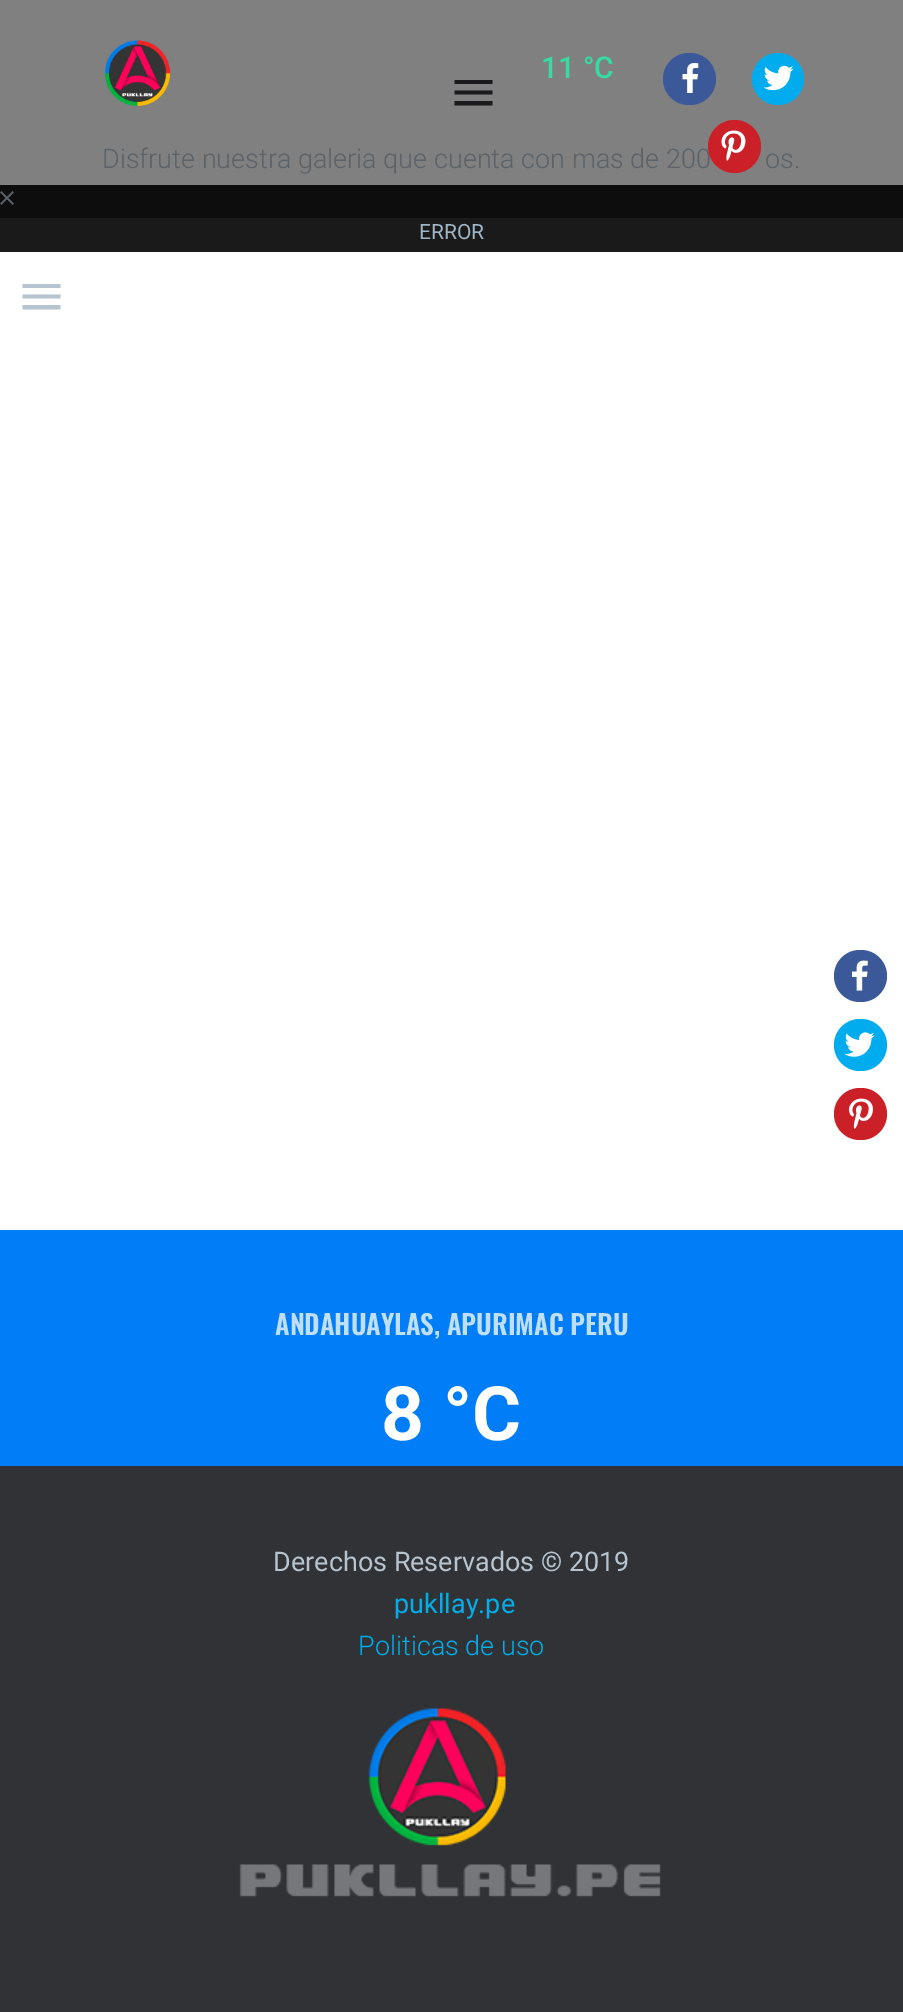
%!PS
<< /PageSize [903 2012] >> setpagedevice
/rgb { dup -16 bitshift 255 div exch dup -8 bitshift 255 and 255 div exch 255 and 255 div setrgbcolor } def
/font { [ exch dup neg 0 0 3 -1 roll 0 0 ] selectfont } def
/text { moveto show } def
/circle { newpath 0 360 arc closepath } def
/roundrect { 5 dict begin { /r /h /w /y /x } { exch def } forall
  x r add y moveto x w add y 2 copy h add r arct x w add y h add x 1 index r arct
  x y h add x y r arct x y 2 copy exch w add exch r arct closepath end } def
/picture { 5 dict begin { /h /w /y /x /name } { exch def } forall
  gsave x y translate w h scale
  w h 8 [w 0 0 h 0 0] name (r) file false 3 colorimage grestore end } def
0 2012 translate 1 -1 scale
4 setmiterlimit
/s1 { /Roboto-Medium 30 font 16#34DCA2 rgb } def
/s2 { /Roboto-Light 27 font 16#5B6268 rgb } def
/s3 { /Roboto-Regular 21 font 16#9FB4C5 rgb } def
/s4 { /Oswald-SemiBold 27 font 16#BFDFFD rgb } def
/s5 { /Roboto-Bold 75 font 16#FFFFFF rgb } def
/s6 { /Roboto-Regular 27 font 16#B6C4D0 rgb } def
/s7 { /Roboto-Regular 27 font 16#02ADEA rgb } def
/s8 { /Roboto-Light 27 font 16#02ADEA rgb } def
16#FFFFFF rgb
0 0 903 2012 rectfill
16#808080 rgb
0 0 903 185 rectfill
(pic1.raw) 105 40 66 66 picture
16#3B5998 rgb
834 950 53 52 26 roundrect fill
(pic2.raw) 852 960 16 31 picture
16#00ACED rgb
834 1019 53 52 26 roundrect fill
(pic3.raw) 844 1032 31 25 picture
16#CB2027 rgb
834 1088 53 52 26 roundrect fill
(pic4.raw) 849 1098 24 31 picture
s1
(11 °C) 541 78 text
16#3B5998 rgb
663 53 53 52 26 roundrect fill
(pic5.raw) 682 63 17 30 picture
16#00ACED rgb
778 79 26 circle fill
(pic6.raw) 763 65 31 26 picture
s2
(Disfrute nuestra galeria que cuenta con mas de 200) 102 168 text
16#CB2027 rgb
734.5 146.5 26.5 circle fill
(pic7.raw) 721 130 25 31 picture
16#1B1B1D rgb
454.5 105.5 moveto 454.5 101 lineto 492.5 101 lineto 492.5 105.5 lineto closepath 454.5 94.5 moveto 454.5 90.5 lineto 492.5 90.5 lineto 492.5 94.5 lineto closepath 454.5 80 moveto 492.5 80 lineto 492.5 84 lineto 454.5 84 lineto closepath fill
s2
(os.) 765 168 text
16#1A1A1A rgb
0 218 903 34 rectfill
16#0D0D0D rgb
0 185 903 33 rectfill
(pic8.raw) 0 191 14 14 picture
s3
(ERROR) 419 239 text
16#B6C4D0 rgb
22.5 309.5 moveto 22.5 305 lineto 60.5 305 lineto 60.5 309.5 lineto closepath 22.5 298.5 moveto 22.5 294.5 lineto 60.5 294.5 lineto 60.5 298.5 lineto closepath 22.5 284 moveto 60.5 284 lineto 60.5 288 lineto 22.5 288 lineto closepath fill
16#313236 rgb
0 1466 903 546 rectfill
16#007DF7 rgb
0 1230 903 236 rectfill
s4
(ANDAHUAYLAS, APURIMAC PERU) 275 1335 text
s5
(8 °C) 381 1440 text
s6
(Derechos Reservados © 2019) 273 1571 text
s7
(pukllay.pe) 394 1613 text
s8
(Politicas de uso) 358 1655 text
(pic9.raw) 239 1708 422 189 picture
showpage
